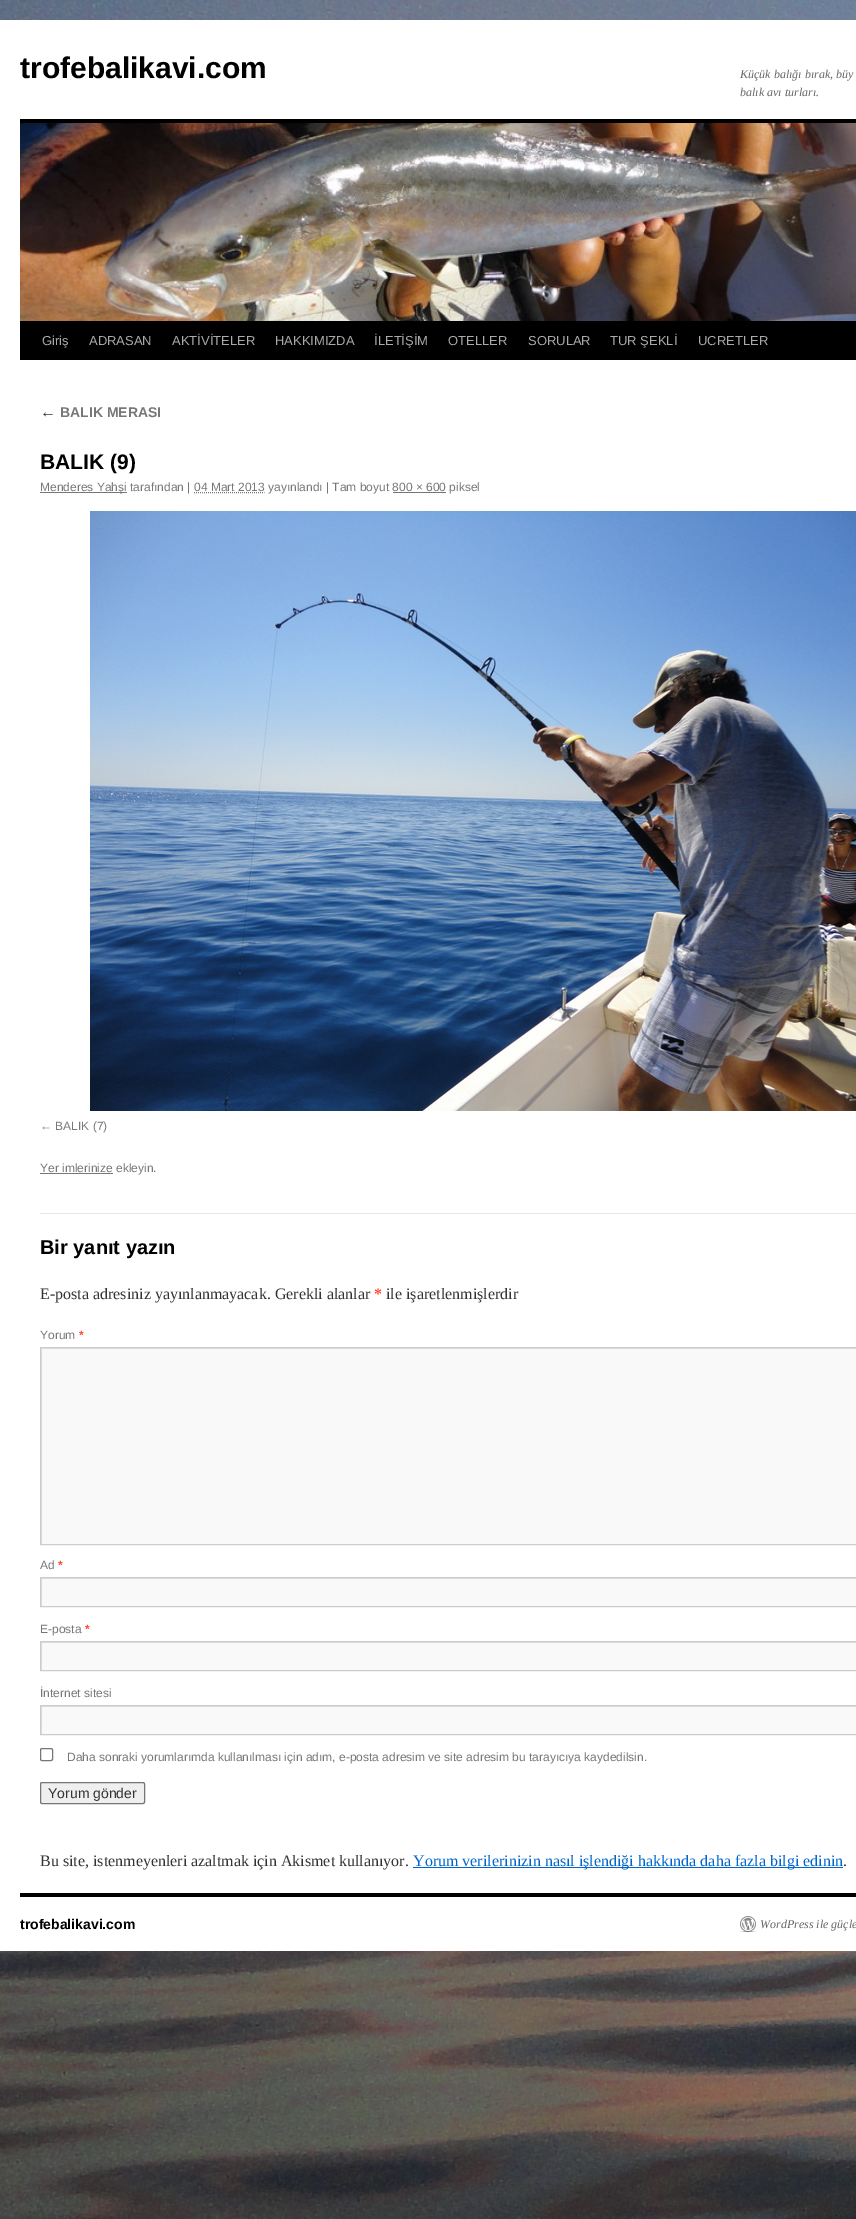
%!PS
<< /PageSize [856 2219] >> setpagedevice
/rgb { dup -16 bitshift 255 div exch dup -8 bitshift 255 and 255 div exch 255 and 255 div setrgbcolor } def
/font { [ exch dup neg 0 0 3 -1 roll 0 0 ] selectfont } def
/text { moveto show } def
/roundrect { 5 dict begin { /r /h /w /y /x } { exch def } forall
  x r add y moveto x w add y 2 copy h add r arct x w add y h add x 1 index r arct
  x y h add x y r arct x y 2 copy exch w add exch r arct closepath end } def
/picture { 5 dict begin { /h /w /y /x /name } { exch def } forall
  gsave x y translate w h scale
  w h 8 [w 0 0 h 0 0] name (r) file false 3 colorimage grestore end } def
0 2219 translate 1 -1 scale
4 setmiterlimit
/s1 { /LiberationSans-Bold 30 font 16#000000 rgb } def
/s2 { /LiberationSerif-Italic 12 font 16#666666 rgb } def
/s3 { /LiberationSans-Regular 13 font 16#AAAAAA rgb } def
/s4 { /LiberationSerif-Italic 16 font 16#333333 rgb } def
/s5 { /LiberationSans-Bold 14 font 16#777777 rgb } def
/s6 { /LiberationSans-Bold 21 font 16#000000 rgb } def
/s7 { /LiberationSans-Regular 12 font 16#777777 rgb } def
/s8 { /LiberationSans-Bold 20 font 16#000000 rgb } def
/s9 { /LiberationSerif-Regular 16 font 16#333333 rgb } def
/s10 { /LiberationSerif-Bold 16 font 16#FF4B33 rgb } def
/s11 { /LiberationSans-Bold 12 font 16#FF4B33 rgb } def
/s12 { /LiberationSans-Regular 14 font 16#333333 rgb } def
/s13 { /LiberationSerif-Regular 16 font 16#0066CC rgb } def
/s14 { /LiberationSans-Bold 14 font 16#000000 rgb } def
16#FFFFFF rgb
0 0 856 2219 rectfill
(pic1.raw) 0 0 856 2219 picture
0 20 856 1931 rectfill
s1
(trofebalikavi.com) 20 78 text
s2
(Küçük balığı bırak, büy) 740 78 text
(balık avı turları.) 740 96 text
16#000000 rgb
20 119 836 4 rectfill
20 321 836 39 rectfill
(pic2.raw) 20 123 836 198 picture
s3
(Giriş) 42 345 text
(ADRASAN) 89 345 text
(AKTİVİTELER) 172 345 text
(HAKKIMIZDA) 275 345 text
(İLETİŞİM) 374 345 text
(OTELLER) 448 345 text
(SORULAR) 528 345 text
(TUR ŞEKLİ) 610 345 text
(UCRETLER) 698 345 text
s4
(←) 40 417 text
s5
(BALIK MERASI) 60 417 text
s6
(BALIK \(9\)) 40 469 text
16#777777 rgb
40 492 87 1 rectfill
s7
(Menderes Yahşi tarafından | 04 Mart 2013 yayınlandı | Tam boyut 800 × 600 piksel) 40 491 text
[1 1] 0 setdash
194 492.5 moveto 264.5 492.5 lineto stroke
393 492 53 1 rectfill
(pic3.raw) 90 511 766 600 picture
(← BALIK \(7\)) 40 1130 text
40 1173 73 1 rectfill
(Yer imlerinize ekleyin.) 40 1172 text
16#E7E7E7 rgb
40 1213 816 1 rectfill
s8
(Bir yanıt yazın) 40 1254 text
s9
(E-posta adresiniz yayınlanmayacak. Gerekli alanlar) 40 1299 text
s10
(*) 374 1299 text
s9
(ile işaretlenmişlerdir) 386 1299 text
s7
(Yorum) 40 1339 text
s11
(*) 79 1339 text
16#F9F9F9 rgb
42 1349 814 195 rectfill
gsave
41 1348 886 196 rectclip
16#E0E0E0 rgb
-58 1249 moveto 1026 1249 lineto 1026 1643 lineto -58 1643 lineto closepath 42 1349 moveto 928 1349 lineto 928 1545 lineto 42 1545 lineto closepath eofill
grestore
16#CCCCCC rgb
[] 0 setdash
40.5 1347.5 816 197 rectstroke
s7
(Ad) 40 1569 text
s11
(*) 58 1569 text
16#F9F9F9 rgb
42 1579 814 27 rectfill
gsave
41 1578 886 28 rectclip
16#E0E0E0 rgb
-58 1479 moveto 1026 1479 lineto 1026 1705 lineto -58 1705 lineto closepath 42 1579 moveto 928 1579 lineto 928 1607 lineto 42 1607 lineto closepath eofill
grestore
16#CCCCCC rgb
40.5 1577.5 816 29 rectstroke
s7
(E-posta) 40 1633 text
s11
(*) 85 1633 text
16#F9F9F9 rgb
42 1643 814 27 rectfill
gsave
41 1642 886 28 rectclip
16#E0E0E0 rgb
-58 1543 moveto 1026 1543 lineto 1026 1769 lineto -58 1769 lineto closepath 42 1643 moveto 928 1643 lineto 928 1671 lineto 42 1671 lineto closepath eofill
grestore
16#CCCCCC rgb
40.5 1641.5 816 29 rectstroke
s7
(İnternet sitesi) 40 1697 text
16#F9F9F9 rgb
42 1707 814 27 rectfill
gsave
41 1706 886 28 rectclip
16#E0E0E0 rgb
-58 1607 moveto 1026 1607 lineto 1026 1833 lineto -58 1833 lineto closepath 42 1707 moveto 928 1707 lineto 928 1735 lineto 42 1735 lineto closepath eofill
grestore
16#CCCCCC rgb
40.5 1705.5 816 29 rectstroke
16#767676 rgb
40.5 1748.5 12 12 1.5 roundrect stroke
s7
(Daha sonraki yorumlarımda kullanılması için adım, e-posta adresim ve site adresim bu tarayıcıya kaydedilsin.) 67 1761 text
16#EFEFEF rgb
40.5 1782.5 104 21 1.5 roundrect gsave fill grestore
16#767676 rgb
stroke
s12
(Yorum gönder) 48 1798 text
s9
(Bu site, istenmeyenleri azaltmak için Akismet kullanıyor.) 40 1866 text
16#0066CC rgb
413 1867 430 1 rectfill
(Yorum verilerinizin nasıl işlendiği hakkında daha fazla bilgi edinin) 413 1866 text
s9
(.) 843 1866 text
16#000000 rgb
20 1893 836 4 rectfill
s14
(trofebalikavi.com) 20 1929 text
(pic4.raw) 740 1916 16 16 picture
s2
(WordPress ile güçle) 760 1928 text
showpage
